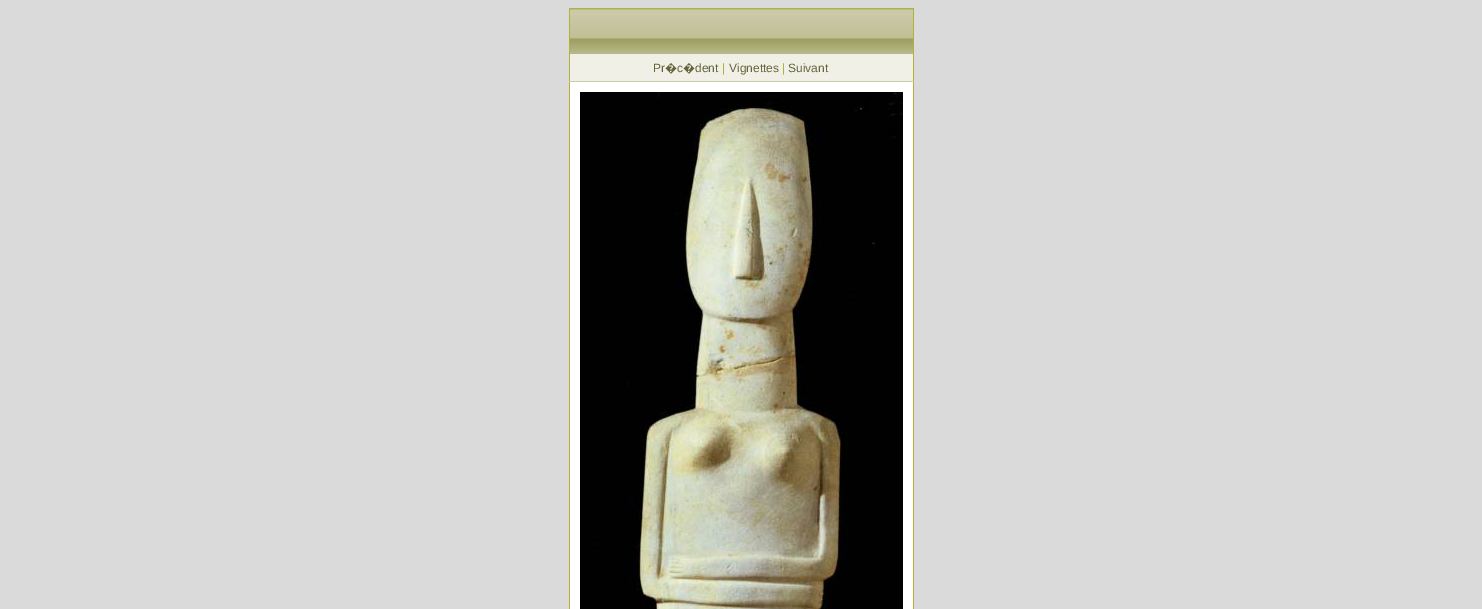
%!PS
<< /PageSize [1482 609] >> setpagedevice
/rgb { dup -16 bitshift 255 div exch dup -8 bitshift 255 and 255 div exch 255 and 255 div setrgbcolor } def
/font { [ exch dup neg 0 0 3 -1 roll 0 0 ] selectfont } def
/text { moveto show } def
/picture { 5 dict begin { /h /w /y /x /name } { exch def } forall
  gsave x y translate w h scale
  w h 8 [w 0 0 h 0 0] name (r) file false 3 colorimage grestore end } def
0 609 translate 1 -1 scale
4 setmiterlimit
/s1 { /LiberationSans-Regular 12 font 16#64643C rgb } def
/s2 { /NotoSans-Regular 12 font 16#64643C rgb } def
/s3 { /LiberationSans-Regular 12 font 16#B1B13C rgb } def
16#DADADA rgb
0 0 1482 609 rectfill
16#FFFFFF rgb
570 82 343 527 rectfill
16#B1B13C rgb
569 8 345 1 rectfill
913 8 1 601 rectfill
569 8 1 601 rectfill
(pic1.raw) 570 9 343 45 picture
16#F1F0E7 rgb
570 54 343 27 rectfill
16#CBCBA9 rgb
569 81 345 1 rectfill
s1
(Pr) 653 72 text
s2
(�) 665 72 text
s1
(c) 677 72 text
s2
(�) 683 72 text
s1
(dent) 695 72 text
s3
(|) 722 72 text
s1
(Vignettes) 729 72 text
s3
(|) 782 72 text
s1
(Suivant) 788 72 text
(pic2.raw) 580 92 323 517 picture
showpage
